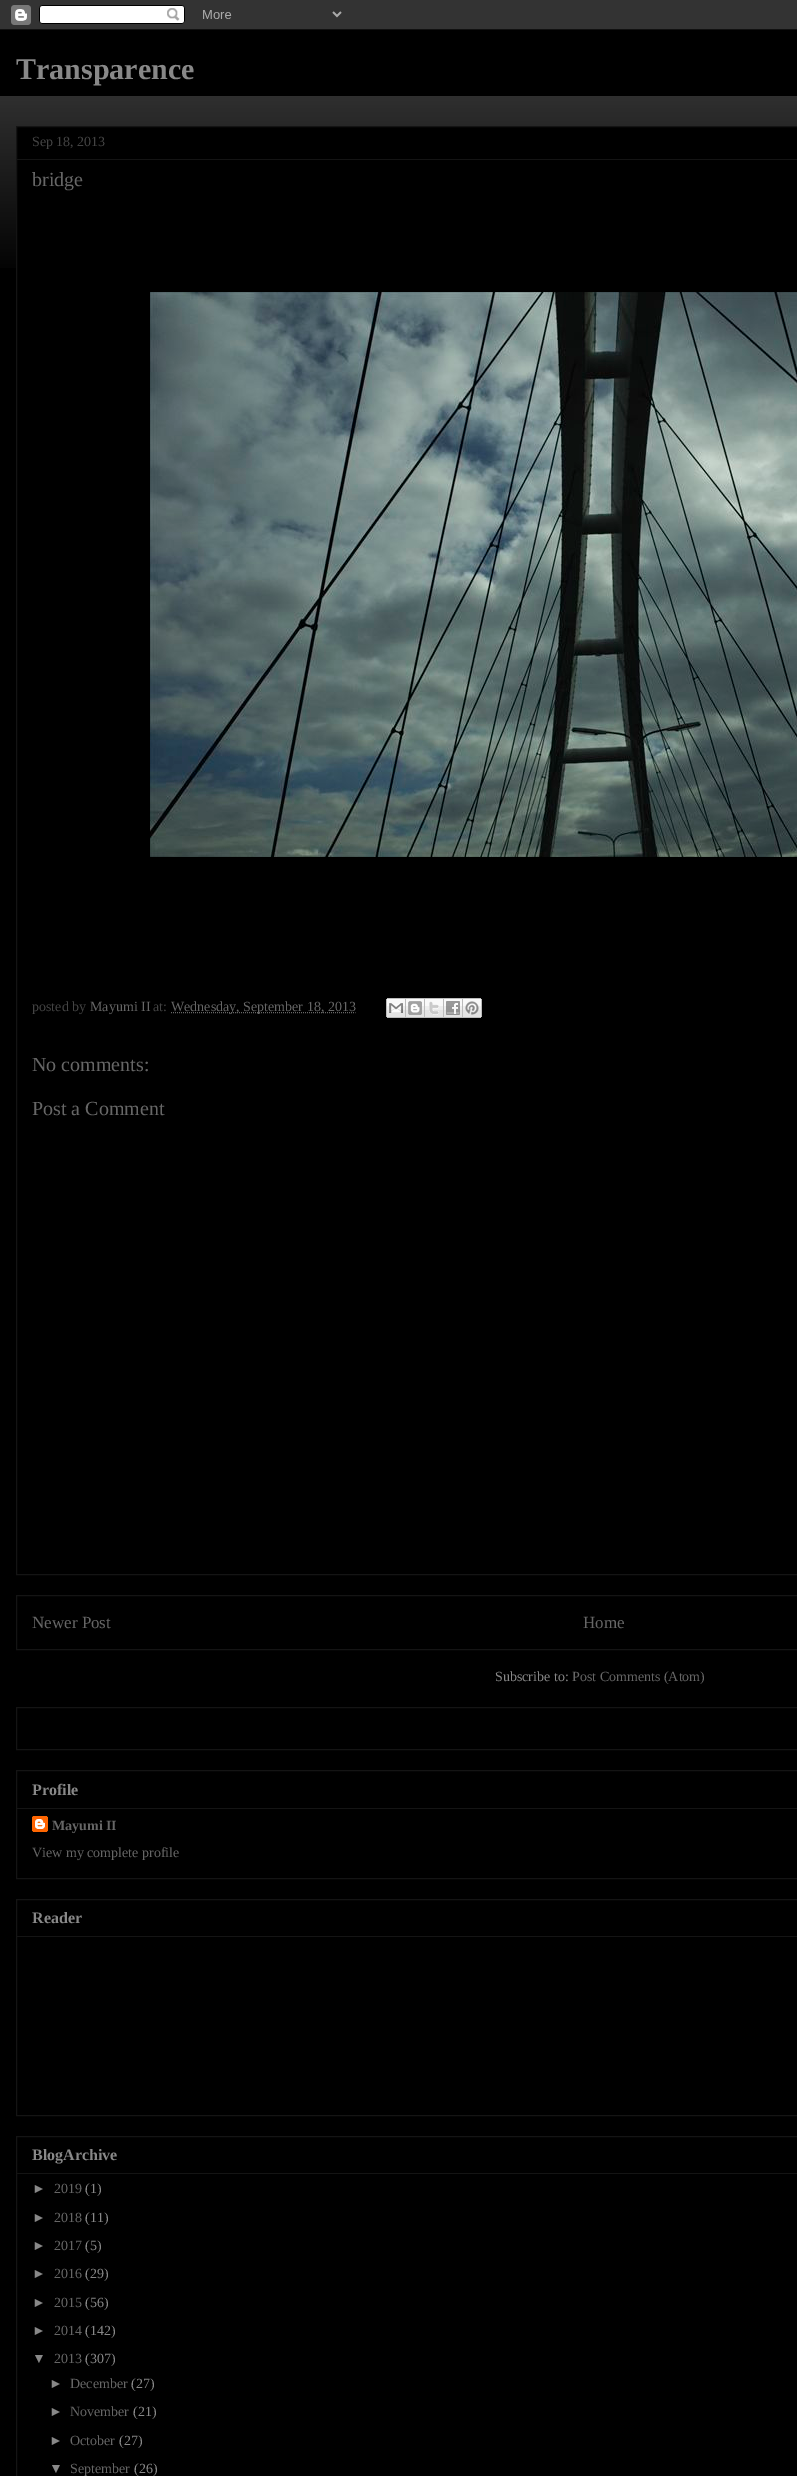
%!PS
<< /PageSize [797 2476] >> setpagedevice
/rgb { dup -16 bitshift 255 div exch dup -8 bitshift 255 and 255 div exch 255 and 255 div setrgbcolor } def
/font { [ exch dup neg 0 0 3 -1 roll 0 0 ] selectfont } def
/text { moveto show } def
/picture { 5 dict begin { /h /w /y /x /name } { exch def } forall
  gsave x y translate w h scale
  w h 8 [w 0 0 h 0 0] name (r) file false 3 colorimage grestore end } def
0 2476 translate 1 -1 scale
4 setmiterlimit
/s1 { /LiberationSerif-Bold 30 font 16#888888 rgb } def
/s2 { /LiberationSerif-Regular 14 font 16#444444 rgb } def
/s3 { /LiberationSerif-Regular 20 font 16#666666 rgb } def
/s4 { /LiberationSerif-Regular 14 font 16#666666 rgb } def
/s5 { /LiberationSerif-Regular 17 font 16#666666 rgb } def
/s6 { /LiberationSerif-Regular 14 font 16#888888 rgb } def
/s7 { /LiberationSerif-Bold 16 font 16#888888 rgb } def
/s8 { /LiberationSerif-Bold 14 font 16#666666 rgb } def
/s9 { /LiberationSans-Regular 14 font 16#888888 rgb } def
16#000000 rgb
0 0 797 2476 rectfill
(pic1.raw) 0 0 797 30 picture
s1
(Transparence) 16 79 text
(pic9.raw) 0 96 797 172 picture
16#000000 rgb
17 127 780 141 rectfill
16#141414 rgb
16.5 126.5 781 1448 rectstroke
s2
(Sep 18, 2013) 32 146 text
16#141414 rgb
17 159 780 1 rectfill
s3
(bridge) 32 186 text
(pic2.raw) 150 292 647 565 picture
s2
(posted by) 32 1011 text
s4
(Mayumi II) 90 1011 text
s2
(at:) 153 1011 text
16#666666 rgb
[1 1] 0 setdash
171 1012.5 moveto 355.5 1012.5 lineto stroke
(Wednesday, September 18, 2013) 171 1011 text
(pic3.raw) 386 998 20 20 picture
(pic4.raw) 406 998 19 20 picture
(pic5.raw) 425 998 19 20 picture
(pic6.raw) 444 998 19 20 picture
(pic7.raw) 463 998 19 20 picture
s3
(No comments:) 32 1071 text
(Post a Comment) 32 1115 text
16#141414 rgb
[] 0 setdash
16.5 1595.5 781 54 rectstroke
s5
(Newer Post) 32 1628 text
(Home) 583 1628 text
s6
(Subscribe to:) 495 1681 text
s4
(Post Comments \(Atom\)) 572 1681 text
16#141414 rgb
16.5 1707.5 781 42 rectstroke
16.5 1770.5 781 108 rectstroke
s7
(Profile) 32 1795 text
16#141414 rgb
17 1808 780 1 rectfill
(pic8.raw) 32 1816 16 16 picture
s8
(Mayumi II) 52 1830 text
s4
(View my complete profile) 32 1857 text
16#141414 rgb
16.5 1899.5 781 216 rectstroke
s7
(Reader) 32 1923 text
16#141414 rgb
17 1936 780 1 rectfill
16.5 2136.5 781 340 rectstroke
s7
(BlogArchive) 32 2160 text
16#141414 rgb
17 2173 780 1 rectfill
s9
(►) 32 2193 text
s4
(2019) 54 2193 text
s6
(\(1\)) 85 2193 text
s9
(►) 32 2222 text
s4
(2018) 54 2222 text
s6
(\(11\)) 85 2222 text
s9
(►) 32 2250 text
s4
(2017) 54 2250 text
s6
(\(5\)) 85 2250 text
s9
(►) 32 2278 text
s4
(2016) 54 2278 text
s6
(\(29\)) 85 2278 text
s9
(►) 32 2307 text
s4
(2015) 54 2307 text
s6
(\(56\)) 85 2307 text
s9
(►) 32 2335 text
s4
(2014) 54 2335 text
s6
(\(142\)) 85 2335 text
s9
(▼) 32 2363 text
s4
(2013) 54 2363 text
s6
(\(307\)) 85 2363 text
s9
(►) 49 2388 text
s4
(December) 70 2388 text
s6
(\(27\)) 131 2388 text
s9
(►) 49 2416 text
s4
(November) 70 2416 text
s6
(\(21\)) 133 2416 text
s9
(►) 49 2445 text
s4
(October) 70 2445 text
s6
(\(27\)) 119 2445 text
s9
(▼) 49 2473 text
s4
(September) 70 2473 text
s6
(\(26\)) 134 2473 text
showpage
